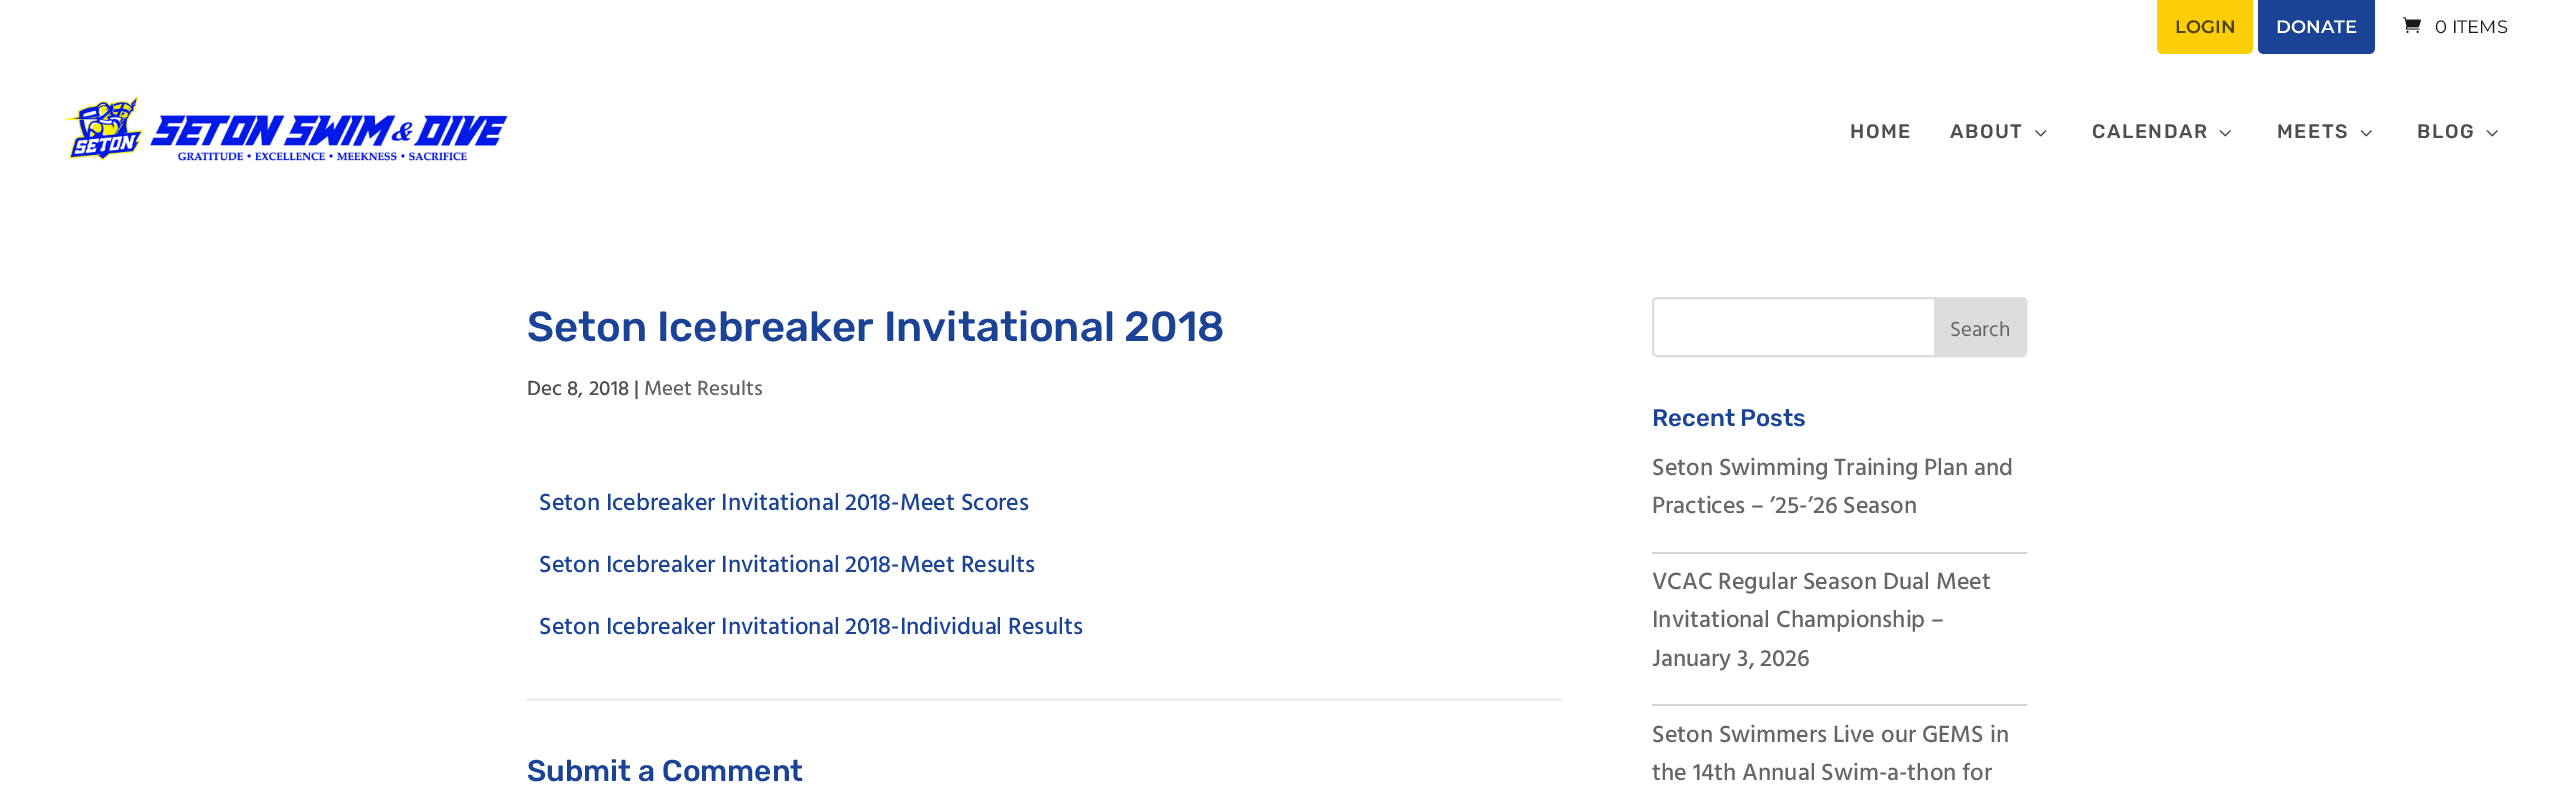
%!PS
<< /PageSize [2553 799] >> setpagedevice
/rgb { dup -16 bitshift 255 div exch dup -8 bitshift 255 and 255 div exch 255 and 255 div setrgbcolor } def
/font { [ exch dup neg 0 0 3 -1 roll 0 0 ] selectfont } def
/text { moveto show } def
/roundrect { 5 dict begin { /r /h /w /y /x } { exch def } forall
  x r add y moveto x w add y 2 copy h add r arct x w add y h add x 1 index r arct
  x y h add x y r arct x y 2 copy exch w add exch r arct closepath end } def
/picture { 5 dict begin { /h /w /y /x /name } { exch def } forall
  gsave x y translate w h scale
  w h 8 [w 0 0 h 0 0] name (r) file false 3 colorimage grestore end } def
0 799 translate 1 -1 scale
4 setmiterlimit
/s1 { /Montserrat-SemiBold 18 font 16#4D4315 rgb } def
/s2 { /Montserrat-SemiBold 18 font 16#FFFFFF rgb } def
/s3 { /Montserrat-Regular 18 font 16#1A1A1A rgb } def
/s4 { /Rubik-Medium 42 font 16#1A4395 rgb } def
/s5 { /Hind-Medium 21 font 16#4E4E4E rgb } def
/s6 { /Hind-Medium 21 font 16#666666 rgb } def
/s7 { /Hind-Medium 24 font 16#1A4395 rgb } def
/s8 { /Rubik-Medium 30 font 16#1A4395 rgb } def
/s9 { /Hind-Regular 21 font 16#666666 rgb } def
/s10 { /Rubik-Medium 24 font 16#1A4395 rgb } def
/s11 { /Hind-Medium 24 font 16#666666 rgb } def
16#FFFFFF rgb
0 0 2553 799 rectfill
16#FBCE08 rgb
2157 0 moveto 2253 0 lineto 2253 48 lineto 2253 51.5 2250.5 54 2247 54 curveto 2163 54 lineto 2159.5 54 2157 51.5 2157 48 curveto closepath fill
s1
(LOGIN) 2175 33 text
16#1A4395 rgb
2258 0 moveto 2375 0 lineto 2375 48 lineto 2375 51.5 2372.5 54 2369 54 curveto 2264 54 lineto 2260.5 54 2258 51.5 2258 48 curveto closepath fill
s2
(DONATE) 2276 33 text
(pic1.raw) 2403 17 18 16 picture
s3
(0 ITEMS) 2435 33 text
(pic2.raw) 63 94 446 68 picture
/Rubik-Medium 19.5 font
16#4E4E4E rgb
1850 138 moveto 1.5 0 (HOME) ashow
1950 138 moveto 1.5 0 (ABOUT) ashow
(pic3.raw) 2035 130 12 7 picture
2092 138 moveto 1.5 0 (CALENDAR) ashow
(pic4.raw) 2219 130 12 7 picture
2277 138 moveto 1.5 0 (MEETS) ashow
(pic4.raw) 2360 130 12 7 picture
2417 138 moveto 1.5 0 (BLOG) ashow
(pic4.raw) 2486 130 12 7 picture
s4
(Seton Icebreaker Invitational 2018) 527 341 text
s5
(Dec 8, 2018 |) 527 395 text
s6
(Meet Results) 644 395 text
s7
(Seton Icebreaker Invitational 2018-Meet Scores) 539 510 text
(Seton Icebreaker Invitational 2018-Meet Results) 539 572 text
(Seton Icebreaker Invitational 2018-Individual Results) 539 634 text
16#EEEEEE rgb
527 698 1035 3 rectfill
s8
(Submit a Comment) 527 781 text
16#DDDDDD rgb
2 setlinewidth
1653 298 373 58 4 roundrect stroke
1935 298 moveto 2022 298 lineto 2024 298 2026 300 2026 302 curveto 2026 352 lineto 2026 354 2024 356 2022 356 curveto 1935 356 lineto closepath gsave fill grestore
stroke
s9
(Search) 1950 336 text
s10
(Recent Posts) 1652 426 text
16#D3D3D3 rgb
1652 552 375 2 rectfill
s11
(Seton Swimming Training Plan and) 1652 475 text
(Practices – ’25-’26 Season) 1652 513 text
16#D3D3D3 rgb
1652 704 375 2 rectfill
s11
(VCAC Regular Season Dual Meet) 1652 589 text
(Invitational Championship –) 1652 627 text
(January 3, 2026) 1652 666 text
(Seton Swimmers Live our GEMS in) 1652 742 text
(the 14th Annual Swim-a-thon for) 1652 780 text
showpage
